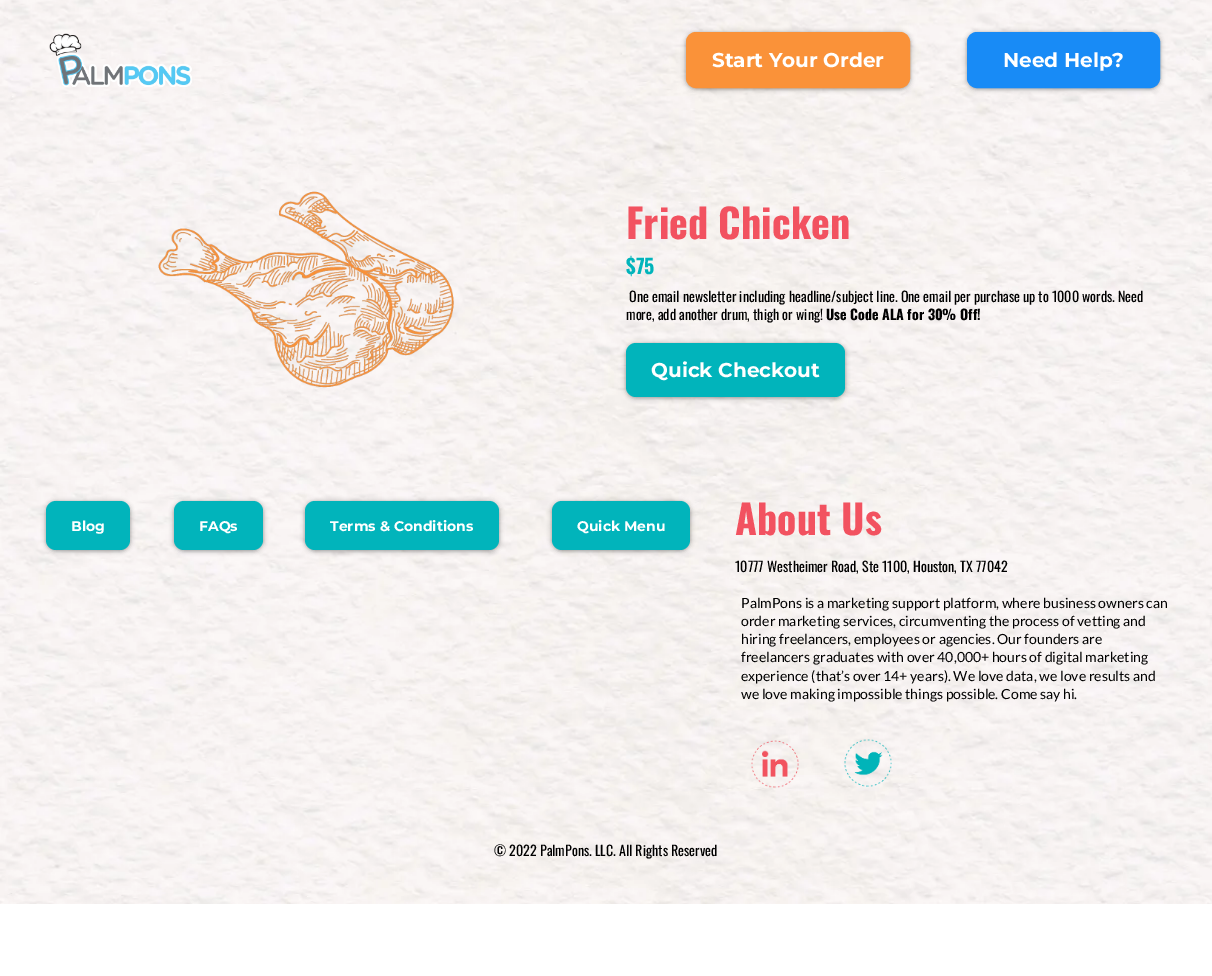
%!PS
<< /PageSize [1212 976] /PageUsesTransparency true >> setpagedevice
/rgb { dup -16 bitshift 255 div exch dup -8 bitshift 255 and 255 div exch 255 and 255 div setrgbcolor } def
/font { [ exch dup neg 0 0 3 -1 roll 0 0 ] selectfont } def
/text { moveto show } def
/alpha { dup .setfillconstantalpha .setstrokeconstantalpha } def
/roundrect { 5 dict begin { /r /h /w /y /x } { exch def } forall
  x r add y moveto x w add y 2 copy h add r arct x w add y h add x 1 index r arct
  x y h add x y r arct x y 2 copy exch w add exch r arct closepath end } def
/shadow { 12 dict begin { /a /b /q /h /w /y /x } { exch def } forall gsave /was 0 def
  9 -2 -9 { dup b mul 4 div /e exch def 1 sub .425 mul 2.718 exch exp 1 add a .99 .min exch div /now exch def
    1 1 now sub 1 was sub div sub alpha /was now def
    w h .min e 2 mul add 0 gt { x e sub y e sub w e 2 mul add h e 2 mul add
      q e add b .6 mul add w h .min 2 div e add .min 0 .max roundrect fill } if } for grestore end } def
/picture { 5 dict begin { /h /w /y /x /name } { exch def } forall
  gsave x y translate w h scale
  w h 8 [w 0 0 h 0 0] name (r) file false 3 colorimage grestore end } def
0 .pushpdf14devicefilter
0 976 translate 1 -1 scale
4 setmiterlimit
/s1 { /Montserrat-Bold 20 font 16#FFFFFF rgb } def
/s2 { /Oswald-Bold 40 font 16#F25260 rgb } def
/s3 { /Oswald-Bold 20 font 16#01B4BB rgb } def
/s4 { /Oswald-Regular 14 font 16#000000 rgb } def
/s5 { /Oswald-Bold 14 font 16#000000 rgb } def
/s6 { /Montserrat-Bold 14 font 16#FFFFFF rgb } def
/s7 { /Lato-Regular 14 font 16#000000 rgb } def
16#FFFFFF rgb
0 0 1212 976 rectfill
(pic1.raw) 0 0 1212 121 picture
(pic2.raw) 49 33 143 54 picture
16#000000 rgb
686 33 224 56 10 2.5 0.4 shadow
16#FA9239 rgb
686.5 32.5 223 55 9.5 roundrect gsave fill grestore
stroke
s1
(Start Your Order) 712 67 text
16#000000 rgb
967 33 193 56 10 2.5 0.4 shadow
16#188BF6 rgb
967.5 32.5 192 55 9.5 roundrect gsave fill grestore
stroke
s1
(Need Help?) 1003 67 text
(pic3.raw) 0 121 1212 350 picture
(pic4.raw) 158 191 296 197 picture
s2
(Fried Chicken) 626 239 text
s3
($75) 626 274 text
s4
(One email newsletter including headline/subject line. One email per purchase up to 1000 words. Need) 629 302 text
(more, add another drum, thigh or wing!) 626 320 text
s5
(Use Code ALA for 30% Off!) 826 320 text
626 344 219 54 10 2.5 0.4 shadow
16#01B4BB rgb
626 343 219 54 10 roundrect fill
s1
(Quick Checkout) 651 377 text
(pic5.raw) 0 471 1212 433 picture
16#000000 rgb
46 502 84 49 10 2.5 0.4 shadow
16#01B4BB rgb
46 501 84 49 10 roundrect fill
s6
(Blog) 71 531 text
16#000000 rgb
174 502 89 49 10 2.5 0.4 shadow
16#01B4BB rgb
174 501 89 49 10 roundrect fill
s6
(FAQs) 199 531 text
16#000000 rgb
305 502 194 49 10 2.5 0.4 shadow
16#01B4BB rgb
305 501 194 49 10 roundrect fill
s6
(Terms & Conditions) 330 531 text
16#000000 rgb
552 502 138 49 10 2.5 0.4 shadow
16#01B4BB rgb
552 501 138 49 10 roundrect fill
s6
(Quick Menu) 577 531 text
s2
(About Us) 735 535 text
s4
(10777 Westheimer Road, Ste 1100, Houston, TX 77042) 735 572 text
s7
(PalmPons is a marketing support platform, where business owners can) 741 608 text
(order marketing services, circumventing the process of vetting and) 741 626 text
(hiring freelancers, employees or agencies. Our founders are) 741 644 text
(freelancers graduates with over 40,000+ hours of digital marketing) 741 662 text
(experience \(that’s over 14+ years\). We love data, we love results and) 741 681 text
(we love making impossible things possible. Come say hi.) 741 699 text
(pic6.raw) 751 740 48 48 picture
(pic7.raw) 844 739 48 48 picture
s4
(© 2022 PalmPons. LLC. All Rights Reserved) 494 856 text
.poppdf14devicefilter showpage
